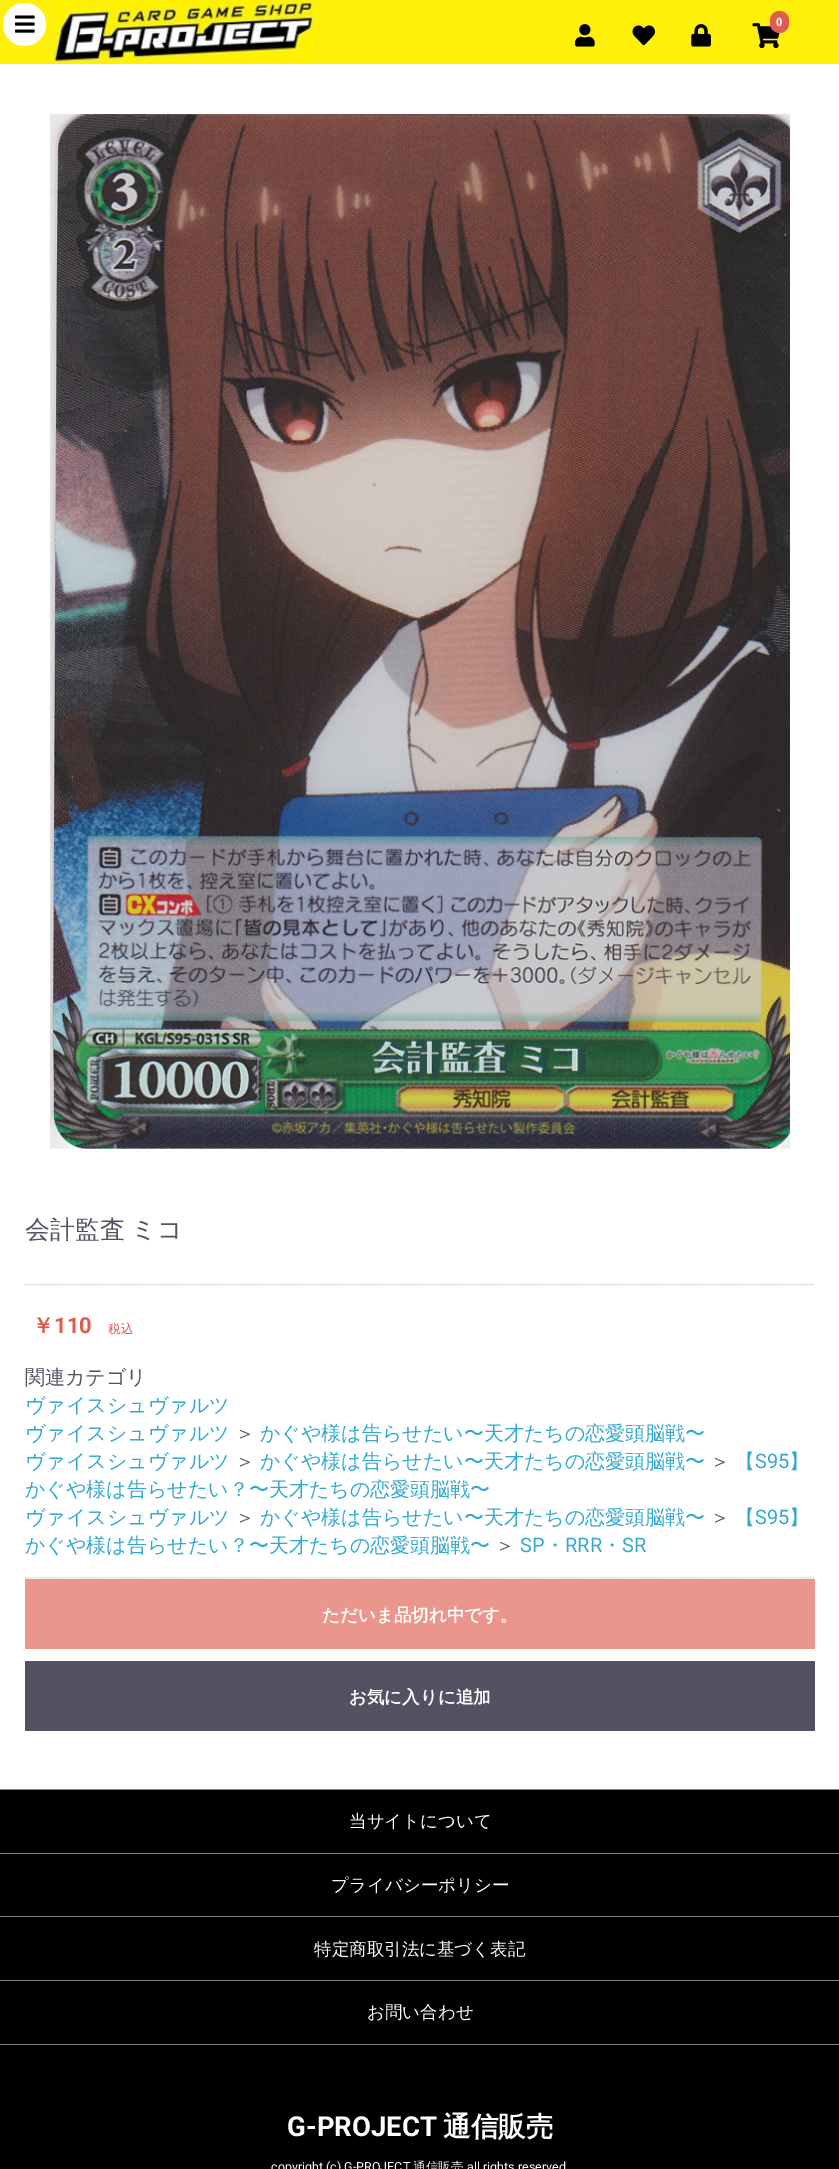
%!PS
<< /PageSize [839 2169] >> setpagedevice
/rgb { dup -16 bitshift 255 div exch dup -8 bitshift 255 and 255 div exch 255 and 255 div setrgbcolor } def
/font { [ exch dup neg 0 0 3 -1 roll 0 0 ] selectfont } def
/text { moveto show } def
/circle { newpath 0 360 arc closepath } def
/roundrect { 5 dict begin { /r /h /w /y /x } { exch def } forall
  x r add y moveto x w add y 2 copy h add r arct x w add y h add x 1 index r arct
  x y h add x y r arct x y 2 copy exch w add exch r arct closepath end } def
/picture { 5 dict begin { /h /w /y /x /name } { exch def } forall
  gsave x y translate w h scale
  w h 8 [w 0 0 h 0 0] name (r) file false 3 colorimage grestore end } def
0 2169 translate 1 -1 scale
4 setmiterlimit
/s1 { /LiberationSerif-Bold 12.5 font 16#FFFFFF rgb } def
/s2 { /WenQuanYiZenHei-Bold 22 font 16#DE5D50 rgb } def
/s3 { /Roboto-Bold 22 font 16#DE5D50 rgb } def
/s4 { /WenQuanYiZenHei-Medium 12.5 font 16#DE5D50 rgb } def
/s5 { /WenQuanYiZenHei-Medium 20 font 16#525263 rgb } def
/s6 { /WenQuanYiZenHei-Medium 20 font 16#33A8D0 rgb } def
/s7 { /Roboto-Regular 20 font 16#33A8D0 rgb } def
/s8 { /WenQuanYiZenHei-Bold 17.5 font 16#FFFFFF rgb } def
/s9 { /WenQuanYiZenHei-Medium 17.5 font 16#FFFFFF rgb } def
/s10 { /Roboto-Bold 27.5 font 16#FFFFFF rgb } def
/s11 { /WenQuanYiZenHei-Bold 27.5 font 16#FFFFFF rgb } def
/s12 { /Roboto-Regular 12.5 font 16#FFFFFF rgb } def
/s13 { /WenQuanYiZenHei-Medium 12.5 font 16#FFFFFF rgb } def
16#FFFFFF rgb
0 0 839 2169 rectfill
16#FEF00B rgb
0 0 839 64 rectfill
(pic1.raw) 52 0 263 64 picture
16#FFFFFF rgb
24.5 24.5 21.5 circle fill
(pic2.raw) 15 15 20 18 picture
(pic3.raw) 752 23 28 26 picture
16#DE5D50 rgb
770 11 19 22 9.5 roundrect fill
s1
(0) 776 26 text
(pic4.raw) 575 24 20 23 picture
(pic5.raw) 632 25 23 21 picture
(pic6.raw) 691 24 20 23 picture
(pic7.raw) 50 114 740 1035 picture
/WenQuanYiZenHei-Medium 25 font
16#525263 rgb
25 1238 moveto -1 0 32 (会計監査 ミコ) widthshow
16#CCCCCC rgb
1.2 setlinewidth
[1.25 1.25] 0 setdash
25 1284.5 moveto 815 1284.5 lineto stroke
s2
(￥) 32 1333 text
s3
(110) 54 1333 text
s4
(税込) 108 1333 text
16#CCCCCC rgb
25 1578 moveto 815 1578 lineto stroke
s5
(関連カテゴリ) 25 1384 text
s6
(ヴァイスシュヴァルツ) 25 1412 text
(ヴァイスシュヴァルツ) 25 1440 text
s5
(＞) 235 1440 text
s6
(かぐや様は告らせたい〜天才たちの恋愛頭脳戦〜) 260 1440 text
(ヴァイスシュヴァルツ) 25 1468 text
s5
(＞) 235 1468 text
s6
(かぐや様は告らせたい〜天才たちの恋愛頭脳戦〜) 260 1468 text
s5
(＞) 710 1468 text
s6
(【) 735 1468 text
s7
(S95) 755 1468 text
s6
(】) 789 1468 text
(かぐや様は告らせたい？〜天才たちの恋愛頭脳戦〜) 25 1496 text
(ヴァイスシュヴァルツ) 25 1524 text
s5
(＞) 235 1524 text
s6
(かぐや様は告らせたい〜天才たちの恋愛頭脳戦〜) 260 1524 text
s5
(＞) 710 1524 text
s6
(【) 735 1524 text
s7
(S95) 755 1524 text
s6
(】) 789 1524 text
(かぐや様は告らせたい？〜天才たちの恋愛頭脳戦〜) 25 1552 text
s5
(＞) 495 1552 text
s7
(SP) 520 1552 text
s6
(・) 545 1552 text
s7
(RRR) 565 1552 text
s6
(・) 602 1552 text
s7
(SR) 622 1552 text
16#EA968D rgb
25 1579 790 70 rectfill
s8
(ただいま品切れ中です。) 322 1621 text
16#525263 rgb
25 1661 790 70 rectfill
s8
(お気に入りに追加) 349 1703 text
16#000000 rgb
0 1790 839 379 rectfill
16#7D7D7D rgb
0 1789 839 1 rectfill
0 1853 839 1 rectfill
s9
(当サイトについて) 349 1827 text
16#7D7D7D rgb
0 1916 839 1 rectfill
s9
(プライバシーポリシー) 331 1891 text
16#7D7D7D rgb
0 1980 839 1 rectfill
s9
(特定商取引法に基づく表記) 314 1955 text
16#7D7D7D rgb
0 2044 839 1 rectfill
s9
(お問い合わせ) 367 2018 text
s10
(G-PROJECT) 287 2136 text
s11
(通信販売) 443 2136 text
s12
(copyright \(c\) G-PROJECT) 271 2171 text
s13
(通信販売) 413 2171 text
s12
(all rights reserved) 467 2171 text
showpage
